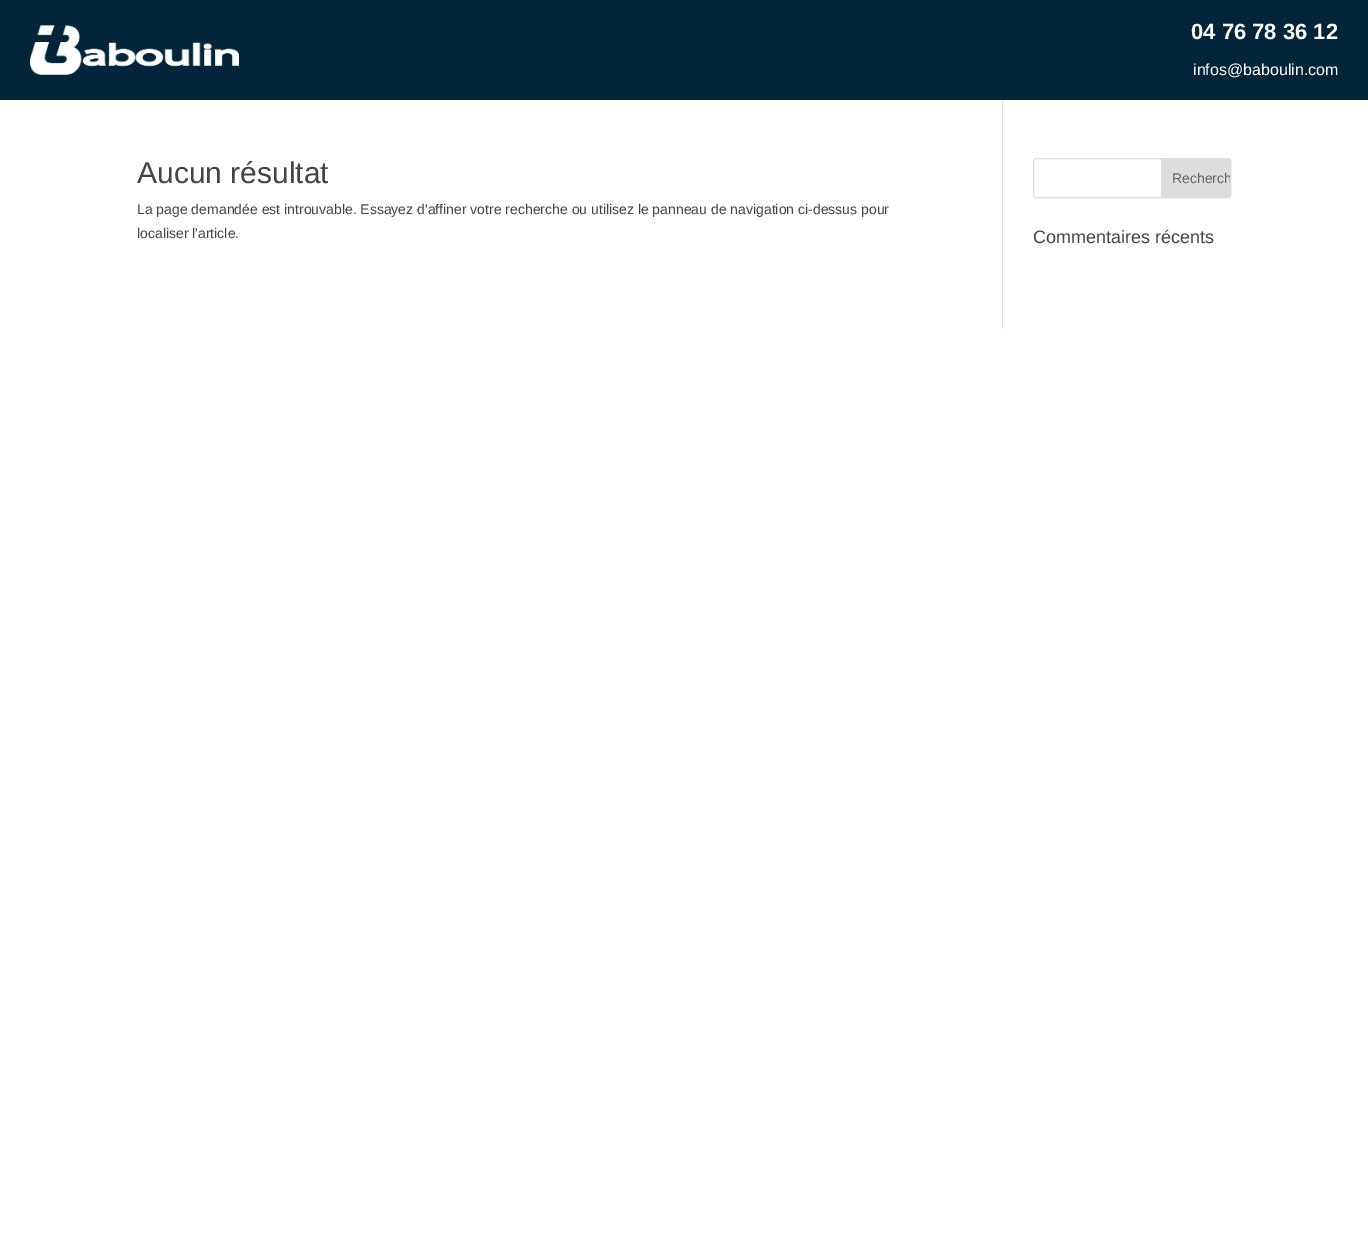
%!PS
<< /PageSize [1368 1244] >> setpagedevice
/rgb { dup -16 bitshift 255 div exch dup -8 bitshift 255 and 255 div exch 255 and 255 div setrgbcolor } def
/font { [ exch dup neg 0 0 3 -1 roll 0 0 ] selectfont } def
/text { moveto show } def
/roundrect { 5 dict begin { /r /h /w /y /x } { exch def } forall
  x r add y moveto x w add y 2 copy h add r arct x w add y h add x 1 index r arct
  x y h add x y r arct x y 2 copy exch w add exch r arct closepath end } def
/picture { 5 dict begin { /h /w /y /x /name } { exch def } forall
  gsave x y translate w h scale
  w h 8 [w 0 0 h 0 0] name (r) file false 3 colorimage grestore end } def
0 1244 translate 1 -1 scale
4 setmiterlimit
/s1 { /LiberationSans-Bold 22 font 16#FFFFFF rgb } def
/s2 { /LiberationSans-Regular 16 font 16#FFFFFF rgb } def
/s3 { /LiberationSans-Regular 30 font 16#444444 rgb } def
/s4 { /LiberationSans-Regular 14 font 16#444444 rgb } def
/s5 { /LiberationSans-Regular 14 font 16#666666 rgb } def
/s6 { /LiberationSans-Regular 18 font 16#444444 rgb } def
16#FFFFFF rgb
0 0 1368 1244 rectfill
16#022539 rgb
0 0 1368 100 rectfill
(pic1.raw) 30 25 209 50 picture
s1
(04 76 78 36 12) 1191 39 text
s2
(infos@baboulin.com) 1193 75 text
16#E2E2E2 rgb
1002 100 1 229 rectfill
s3
(Aucun résultat) 137 183 text
s4
(La page demandée est introuvable. Essayez d'affiner votre recherche ou utilisez le panneau de navigation ci-dessus pour) 137 214 text
(localiser l'article.) 137 238 text
16#DDDDDD rgb
1033.5 158.5 197 39 2.5 roundrect stroke
1161.5 158.5 moveto 1228 158.5 lineto 1229.5 158.5 1230.5 159.5 1230.5 161 curveto 1230.5 195 lineto 1230.5 196.5 1229.5 197.5 1228 197.5 curveto 1161.5 197.5 lineto closepath gsave fill grestore
stroke
gsave
1162 159 moveto 1228 159 lineto 1229 159 1230 160 1230 161 curveto 1230 195 lineto 1230 196 1229 197 1228 197 curveto 1162 197 lineto closepath clip newpath
s5
(Recherch) 1172 183 text
grestore
s6
(Commentaires récents) 1033 243 text
showpage
